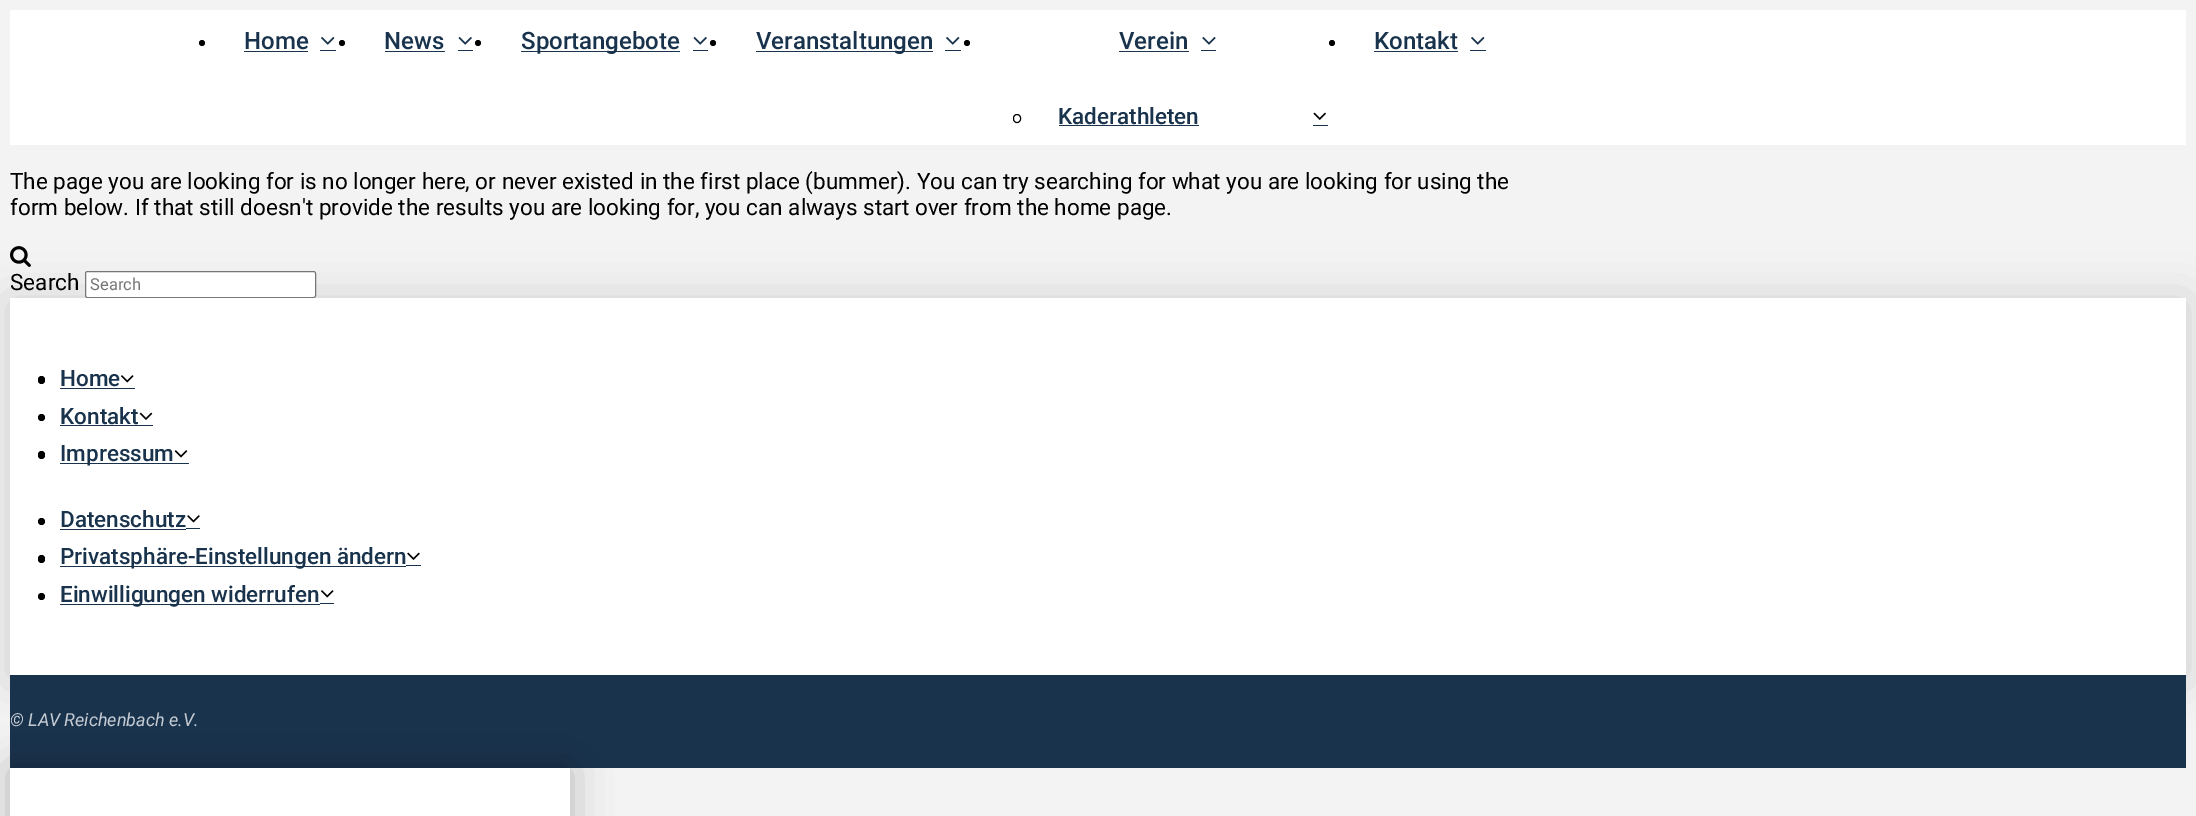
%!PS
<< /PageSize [2196 816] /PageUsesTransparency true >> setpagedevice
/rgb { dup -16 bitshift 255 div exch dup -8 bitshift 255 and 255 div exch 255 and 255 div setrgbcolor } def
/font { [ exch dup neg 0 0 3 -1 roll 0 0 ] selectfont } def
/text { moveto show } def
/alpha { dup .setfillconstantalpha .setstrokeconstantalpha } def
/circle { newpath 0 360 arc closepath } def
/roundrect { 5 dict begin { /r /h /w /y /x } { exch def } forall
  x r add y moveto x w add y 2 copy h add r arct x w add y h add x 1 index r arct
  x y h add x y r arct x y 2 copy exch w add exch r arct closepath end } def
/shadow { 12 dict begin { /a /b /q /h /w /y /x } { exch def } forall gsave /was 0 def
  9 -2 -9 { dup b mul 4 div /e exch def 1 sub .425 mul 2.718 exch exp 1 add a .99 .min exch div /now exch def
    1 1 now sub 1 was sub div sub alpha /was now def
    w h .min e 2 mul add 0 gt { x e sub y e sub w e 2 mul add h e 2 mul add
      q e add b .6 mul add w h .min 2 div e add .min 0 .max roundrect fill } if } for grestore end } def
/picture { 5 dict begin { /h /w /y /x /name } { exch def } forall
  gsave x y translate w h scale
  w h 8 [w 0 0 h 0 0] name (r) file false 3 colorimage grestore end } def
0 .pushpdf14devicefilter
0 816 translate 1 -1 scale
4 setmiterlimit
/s1 { /Roboto-Medium 24 font 16#19334D rgb } def
/s2 { /Roboto-Medium 22.5 font 16#19334D rgb } def
/s3 { /Roboto-Regular 22.5 font 16#000000 rgb } def
/s4 { /Roboto-Regular 16.5 font 16#757575 rgb } def
/s5 { /Roboto-Italic 18 font 16#C5CBD3 rgb } def
16#F3F3F3 rgb
0 0 2196 816 rectfill
16#FFFFFF rgb
10 10 2176 135 rectfill
16#000000 rgb
202 43 3 circle fill
s1
(Home) 244 49 text
244 51 64 1 rectfill
320 50 16 1 rectfill
(pic1.raw) 321 37 14 8 picture
16#000000 rgb
342 43 3 circle fill
s1
(News) 384 49 text
385 51 60 1 rectfill
458 50 15 1 rectfill
(pic2.raw) 458 37 14 8 picture
16#000000 rgb
478 43 3 circle fill
16#19334D rgb
521 51 159 1 rectfill
(Sportangebote) 521 49 text
693 50 15 1 rectfill
(pic2.raw) 693 37 14 8 picture
16#000000 rgb
713 43 3 circle fill
16#19334D rgb
756 51 177 1 rectfill
(Veranstaltungen) 756 49 text
945 50 16 1 rectfill
(pic1.raw) 946 37 14 8 picture
16#000000 rgb
967 43 3 circle fill
s1
(Verein) 1119 49 text
1119 51 70 1 rectfill
1201 50 15 1 rectfill
(pic3.raw) 1202 37 14 8 picture
16#000000 rgb
1013.5 114.5 7 8 3.5 roundrect stroke
s2
(Kaderathleten) 1058 124 text
1059 125 140 1 rectfill
1313 125 15 1 rectfill
(pic4.raw) 1313 112 13 8 picture
16#000000 rgb
1332 43 3 circle fill
s1
(Kontakt) 1374 49 text
1374 51 84 1 rectfill
1470 50 16 1 rectfill
(pic1.raw) 1471 37 14 8 picture
s3
(The page you are looking for is no longer here, or never existed in the first place \(bummer\). You can try searching for what you are looking for using the) 10 189 text
(form below. If that still doesn't provide the results you are looking for, you can always start over from the home page.) 10 215 text
10 301 2176 378 0 22.5 0.15 shadow
(pic5.raw) 10 246 21 21 picture
(Search) 10 290 text
16#FFFFFF rgb
85.5 271.5 230 26 2 roundrect gsave fill grestore
16#767676 rgb
stroke
s4
(Search) 90 290 text
16#FFFFFF rgb
10 298 2176 377 rectfill
16#000000 rgb
38 376 7 8 3.5 roundrect fill
s2
(Home) 60 386 text
60 388 75 1 rectfill
(pic6.raw) 121 375 13 8 picture
16#000000 rgb
41.5 417.5 3.5 circle fill
s2
(Kontakt) 60 424 text
60 425 93 1 rectfill
(pic7.raw) 139 412 14 8 picture
16#000000 rgb
38 451 7 8 3.5 roundrect fill
16#19334D rgb
60 463 129 1 rectfill
(Impressum) 60 461 text
(pic8.raw) 174 450 14 8 picture
16#000000 rgb
41.5 521.5 3.5 circle fill
s2
(Datenschutz) 60 527 text
60 529 126 1 rectfill
186 528 14 1 rectfill
(pic9.raw) 187 515 13 8 picture
16#000000 rgb
38 555 7 8 3.5 roundrect fill
16#19334D rgb
60 566 346 1 rectfill
(Privatsphäre-Einstellungen ändern) 60 564 text
406 565 15 1 rectfill
(pic10.raw) 407 552 13 8 picture
16#000000 rgb
41.5 596.5 3.5 circle fill
16#19334D rgb
60 604 260 1 rectfill
(Einwilligungen widerrufen) 60 602 text
320 603 14 1 rectfill
(pic6.raw) 321 590 13 8 picture
10 675 2176 93 rectfill
16#000000 rgb
10 768 560 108 0 20 0.25 shadow
s5
(© LAV Reichenbach e.V.) 10 726 text
16#FFFFFF rgb
10 768 560 48 rectfill
.poppdf14devicefilter showpage
